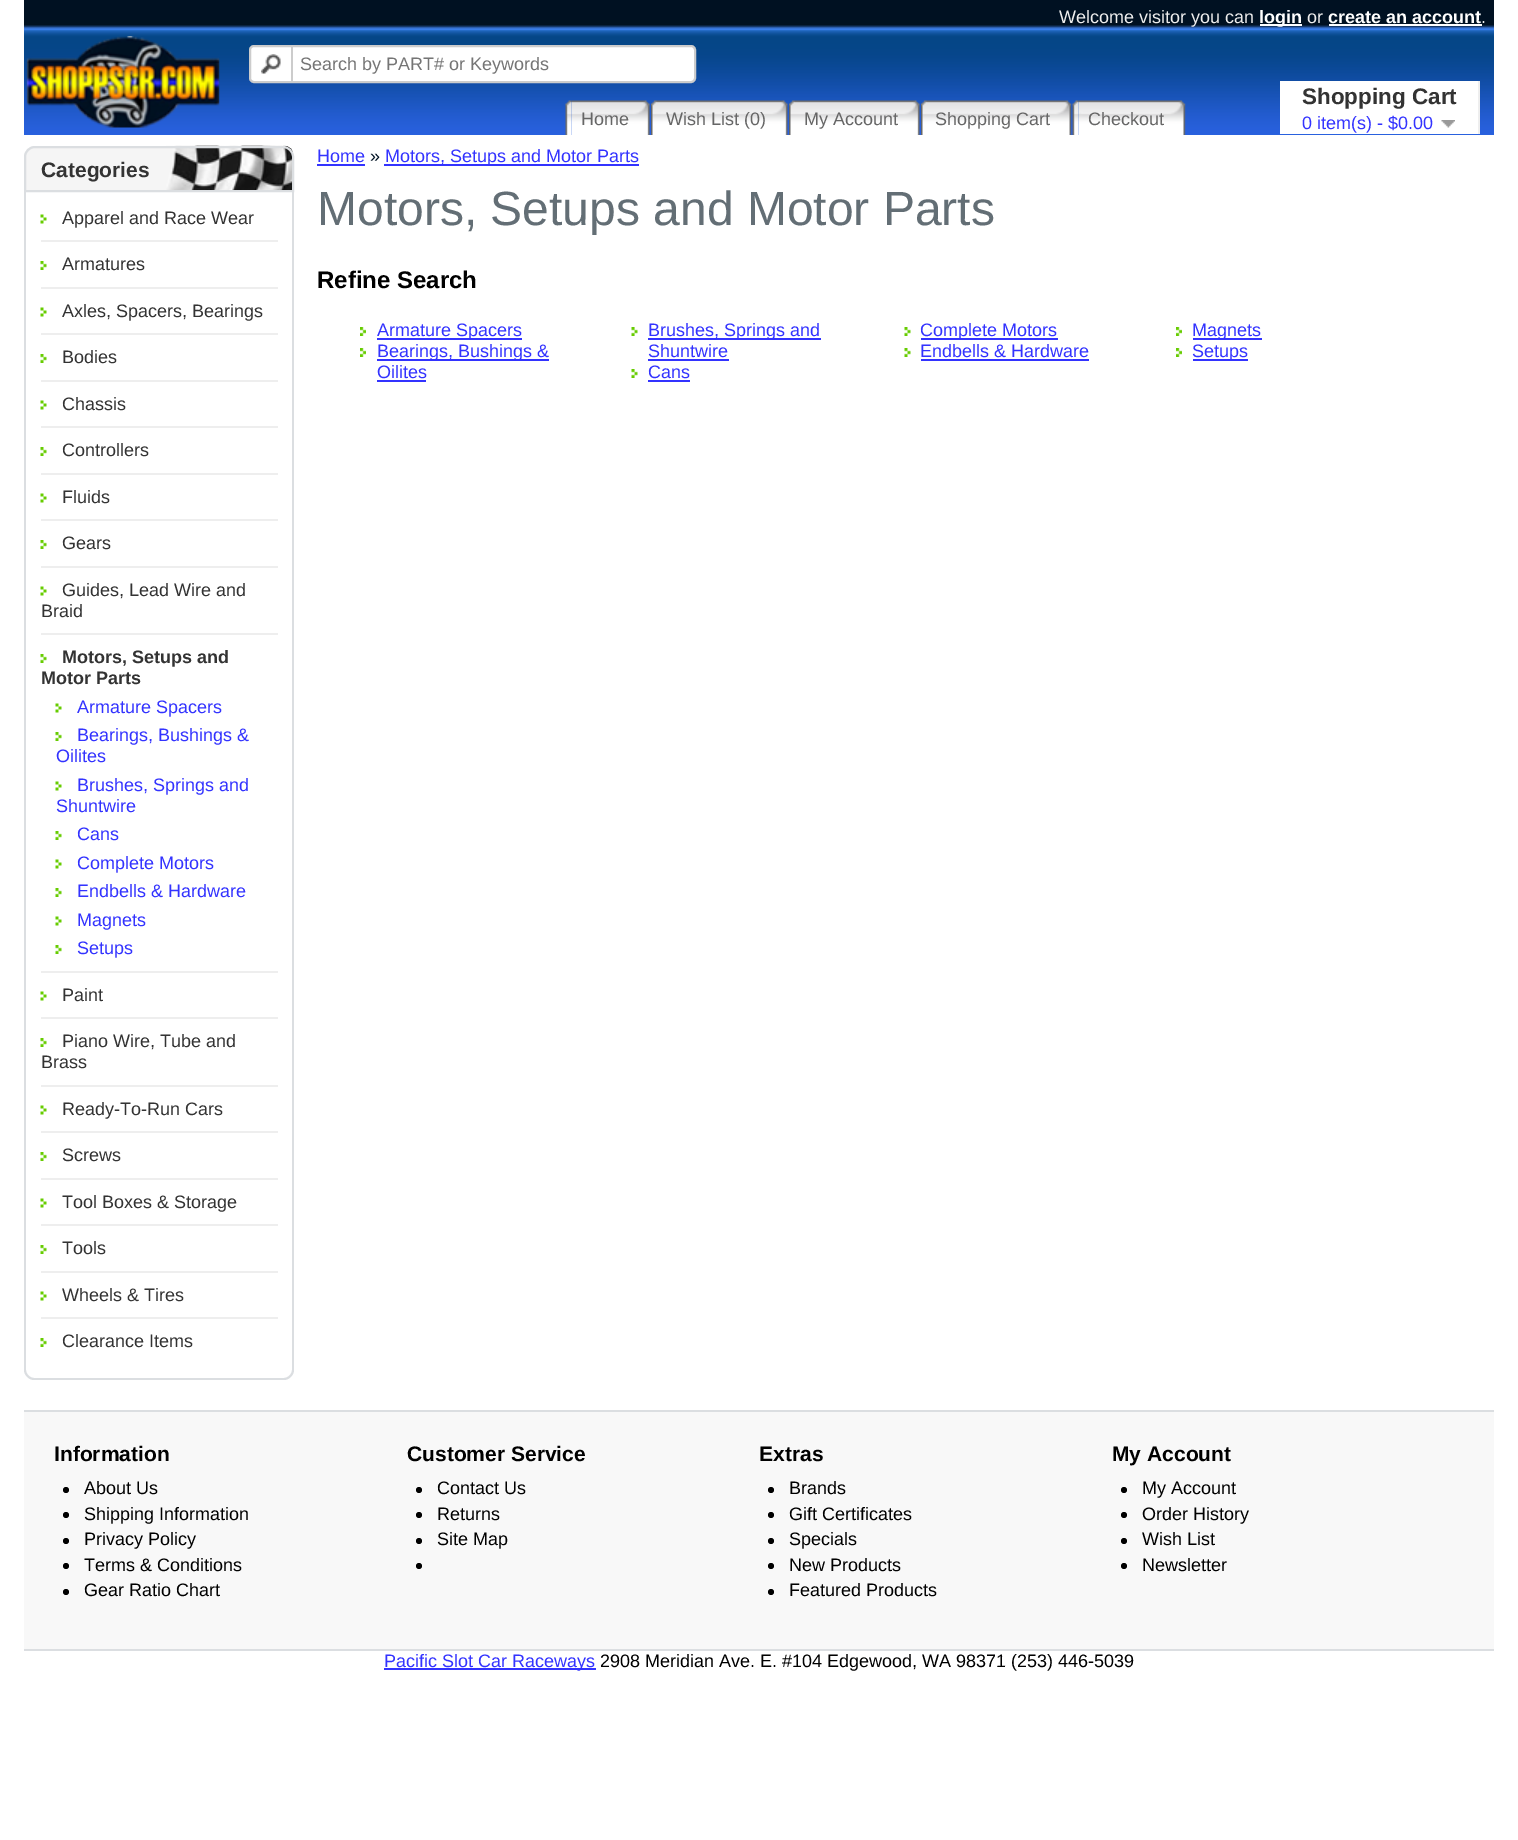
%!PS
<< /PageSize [1518 1840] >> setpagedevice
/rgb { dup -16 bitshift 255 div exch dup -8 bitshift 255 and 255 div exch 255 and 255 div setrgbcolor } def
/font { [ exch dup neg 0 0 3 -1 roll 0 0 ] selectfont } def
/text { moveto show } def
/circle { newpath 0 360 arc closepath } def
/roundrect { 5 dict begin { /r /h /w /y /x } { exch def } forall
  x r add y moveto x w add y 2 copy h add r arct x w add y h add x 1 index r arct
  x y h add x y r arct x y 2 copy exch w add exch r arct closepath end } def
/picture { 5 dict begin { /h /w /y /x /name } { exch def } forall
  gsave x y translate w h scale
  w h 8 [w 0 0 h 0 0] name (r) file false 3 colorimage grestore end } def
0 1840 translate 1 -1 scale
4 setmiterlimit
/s1 { /LiberationSans-Regular 18 font 16#EDEDED rgb } def
/s2 { /LiberationSans-Bold 18 font 16#FFFFFF rgb } def
/s3 { /LiberationSans-Regular 18 font 16#757575 rgb } def
/s4 { /LiberationSans-Regular 18 font 16#666666 rgb } def
/s5 { /LiberationSans-Bold 22.5 font 16#333333 rgb } def
/s6 { /LiberationSans-Regular 18 font 16#3333FF rgb } def
/s7 { /LiberationSans-Bold 21 font 16#333333 rgb } def
/s8 { /LiberationSans-Regular 18 font 16#333333 rgb } def
/s9 { /LiberationSans-Bold 18 font 16#333333 rgb } def
/s10 { /LiberationSans-Regular 18 font 16#001122 rgb } def
/s11 { /LiberationSans-Regular 48 font 16#636E75 rgb } def
/s12 { /LiberationSans-Bold 24 font 16#000000 rgb } def
/s13 { /LiberationSans-Bold 21 font 16#000000 rgb } def
/s14 { /LiberationSans-Regular 18 font 16#000000 rgb } def
16#FFFFFF rgb
0 0 1518 1840 rectfill
(pic1.raw) 24 0 1470 135 picture
s1
(Welcome visitor you can) 1059 23 text
16#FFFFFF rgb
1260 24 42 2 rectfill
s2
(login) 1259 23 text
s1
(or) 1307 23 text
s2
(create an account) 1328 23 text
1329 24 153 2 rectfill
s1
(.) 1481 23 text
(pic2.raw) 26 36 194 92 picture
16#FFFFFF rgb
250 46 445 36 4 roundrect gsave fill grestore
16#CCCCCC rgb
2 setlinewidth
stroke
(pic3.raw) 261 54 20 20 picture
291 45 2 36 rectfill
s3
(Search by PART# or Keywords) 300 70 text
(pic4.raw) 565 100 7 35 picture
(pic5.raw) 571 100 79 35 picture
s4
(Home) 581 125 text
(pic6.raw) 651 100 6 35 picture
(pic7.raw) 657 100 131 35 picture
(Wish List \(0\)) 666 125 text
(pic6.raw) 789 100 6 35 picture
(pic8.raw) 795 100 125 35 picture
(My Account) 804 125 text
(pic6.raw) 921 100 6 35 picture
(pic9.raw) 927 100 145 35 picture
(Shopping Cart) 935 125 text
(pic10.raw) 1072 100 7 35 picture
(pic11.raw) 1078 100 108 35 picture
(Checkout) 1088 125 text
16#FFFFFF rgb
1280 81 198 53 rectfill
16#EEEEEE rgb
1478 81 2 53 rectfill
s5
(Shopping Cart) 1302 104 text
s6
(0 item\(s\) - $0.00) 1302 129 text
(pic12.raw) 1441 120 14 8 picture
16#F5F5F5 rgb
35 146 moveto 283 146 lineto 289 146 294 151 294 157 curveto 294 192 lineto 24 192 lineto 24 157 lineto 24 151 29 146 35 146 curveto closepath fill
(pic13.raw) 166 145 127 45 picture
16#DBDEE1 rgb
35 147 moveto 283 147 lineto 288.5 147 293 151.5 293 157 curveto 293 191 lineto 25 191 lineto 25 157 lineto 25 151.5 29.5 147 35 147 curveto closepath stroke
s7
(Categories) 41 177 text
16#DBDEE1 rgb
24 192 moveto 294 192 lineto 294 1370 lineto 294 1375 289 1380 284 1380 curveto 34 1380 lineto 29 1380 24 1375 24 1370 curveto closepath 26 192 moveto 292 192 lineto 292 1370 lineto 292 1374 288 1378 284 1378 curveto 34 1378 lineto 30 1378 26 1374 26 1370 curveto closepath eofill
(pic14.raw) 40 214 7 10 picture
s8
(Apparel and Race Wear) 62 224 text
16#EEEEEE rgb
41 240 237 2 rectfill
(pic15.raw) 40 261 7 9 picture
s8
(Armatures) 62 270 text
16#EEEEEE rgb
41 287 237 2 rectfill
(pic14.raw) 40 307 7 10 picture
s8
(Axles, Spacers, Bearings) 62 317 text
16#EEEEEE rgb
41 333 237 2 rectfill
(pic15.raw) 40 354 7 9 picture
s8
(Bodies) 62 363 text
16#EEEEEE rgb
41 380 237 2 rectfill
(pic14.raw) 40 400 7 10 picture
s8
(Chassis) 62 410 text
16#EEEEEE rgb
41 426 237 2 rectfill
(pic15.raw) 40 447 7 9 picture
s8
(Controllers) 62 456 text
16#EEEEEE rgb
41 473 237 2 rectfill
(pic14.raw) 40 493 7 10 picture
s8
(Fluids) 62 503 text
16#EEEEEE rgb
41 519 237 2 rectfill
(pic15.raw) 40 540 7 9 picture
s8
(Gears) 62 549 text
16#EEEEEE rgb
41 566 237 2 rectfill
(pic14.raw) 40 586 7 10 picture
s8
(Guides, Lead Wire and) 62 596 text
(Braid) 41 617 text
16#EEEEEE rgb
41 633 237 2 rectfill
(pic15.raw) 40 654 7 9 picture
s9
(Motors, Setups and) 62 663 text
(Motor Parts) 41 684 text
(pic14.raw) 55 703 7 10 picture
s6
(Armature Spacers) 77 713 text
(pic15.raw) 55 732 7 9 picture
(Bearings, Bushings &) 77 741 text
(Oilites) 56 762 text
(pic14.raw) 55 781 7 10 picture
(Brushes, Springs and) 77 791 text
(Shuntwire) 56 812 text
(pic15.raw) 55 831 7 9 picture
(Cans) 77 840 text
(pic14.raw) 55 859 7 10 picture
(Complete Motors) 77 869 text
(pic15.raw) 55 888 7 9 picture
(Endbells & Hardware) 77 897 text
(pic14.raw) 55 916 7 10 picture
(Magnets) 77 926 text
(pic15.raw) 55 945 7 9 picture
(Setups) 77 954 text
16#EEEEEE rgb
41 971 237 2 rectfill
(pic14.raw) 40 991 7 10 picture
s8
(Paint) 62 1001 text
16#EEEEEE rgb
41 1017 237 2 rectfill
(pic15.raw) 40 1038 7 9 picture
s8
(Piano Wire, Tube and) 62 1047 text
(Brass) 41 1068 text
16#EEEEEE rgb
41 1085 237 2 rectfill
(pic14.raw) 40 1105 7 10 picture
s8
(Ready-To-Run Cars) 62 1115 text
16#EEEEEE rgb
41 1131 237 2 rectfill
(pic15.raw) 40 1152 7 9 picture
s8
(Screws) 62 1161 text
16#EEEEEE rgb
41 1178 237 2 rectfill
(pic14.raw) 40 1198 7 10 picture
s8
(Tool Boxes & Storage) 62 1208 text
16#EEEEEE rgb
41 1224 237 2 rectfill
(pic15.raw) 40 1245 7 9 picture
s8
(Tools) 62 1254 text
16#EEEEEE rgb
41 1271 237 2 rectfill
(pic14.raw) 40 1291 7 10 picture
s8
(Wheels & Tires) 62 1301 text
16#EEEEEE rgb
41 1317 237 2 rectfill
(pic15.raw) 40 1338 7 9 picture
s8
(Clearance Items) 62 1347 text
s6
(Home) 317 162 text
317 164 48 2 rectfill
s10
(») 370 162 text
16#3333FF rgb
384 164 255 2 rectfill
(Motors, Setups and Motor Parts) 385 162 text
s11
(Motors, Setups and Motor Parts) 317 225 text
s12
(Refine Search) 317 288 text
(pic16.raw) 360 327 6 9 picture
16#3333FF rgb
377 338 145 2 rectfill
s6
(Armature Spacers) 377 336 text
(pic16.raw) 360 348 6 9 picture
377 359 172 2 rectfill
(Bearings, Bushings &) 377 357 text
(Oilites) 377 378 text
377 380 49 2 rectfill
(pic17.raw) 631 327 7 9 picture
648 338 173 2 rectfill
(Brushes, Springs and) 648 336 text
(Shuntwire) 648 357 text
648 359 81 2 rectfill
(pic17.raw) 631 369 7 9 picture
(Cans) 648 378 text
648 380 42 2 rectfill
(pic15.raw) 904 327 7 9 picture
921 338 137 2 rectfill
(Complete Motors) 920 336 text
(pic15.raw) 904 348 7 9 picture
(Endbells & Hardware) 920 357 text
921 359 168 2 rectfill
(pic16.raw) 1176 327 6 9 picture
1193 338 69 2 rectfill
(Magnets) 1192 336 text
(pic16.raw) 1176 348 6 9 picture
1193 359 55 2 rectfill
(Setups) 1192 357 text
16#F8F8F8 rgb
24 1412 1470 237 rectfill
16#DBDEE1 rgb
24 1410 1470 2 rectfill
24 1649 1470 2 rectfill
s13
(Information) 54 1461 text
66 1490 3 circle fill
s14
(About Us) 84 1494 text
66 1515 3 circle fill
(Shipping Information) 84 1520 text
66 1541 3 circle fill
(Privacy Policy) 84 1545 text
66 1566 3 circle fill
(Terms & Conditions) 84 1571 text
66 1592 3 circle fill
(Gear Ratio Chart) 84 1596 text
s13
(Customer Service) 407 1461 text
419 1490 3 circle fill
s14
(Contact Us) 437 1494 text
419 1515 3 circle fill
(Returns) 437 1520 text
419 1541 3 circle fill
(Site Map) 437 1545 text
419 1566 3 circle fill
s13
(Extras) 759 1461 text
771 1490 3 circle fill
s14
(Brands) 789 1494 text
771 1515 3 circle fill
(Gift Certificates) 789 1520 text
771 1541 3 circle fill
(Specials) 789 1545 text
771 1566 3 circle fill
(New Products) 789 1571 text
771 1592 3 circle fill
(Featured Products) 789 1596 text
s13
(My Account) 1112 1461 text
1124 1490 3 circle fill
s14
(My Account) 1142 1494 text
1124 1515 3 circle fill
(Order History) 1142 1520 text
1124 1541 3 circle fill
(Wish List) 1142 1545 text
1124 1566 3 circle fill
(Newsletter) 1142 1571 text
16#3333FF rgb
384 1668 212 2 rectfill
(Pacific Slot Car Raceways) 384 1667 text
s14
(2908 Meridian Ave. E. #104 Edgewood, WA 98371 \(253\) 446-5039) 600 1667 text
showpage
